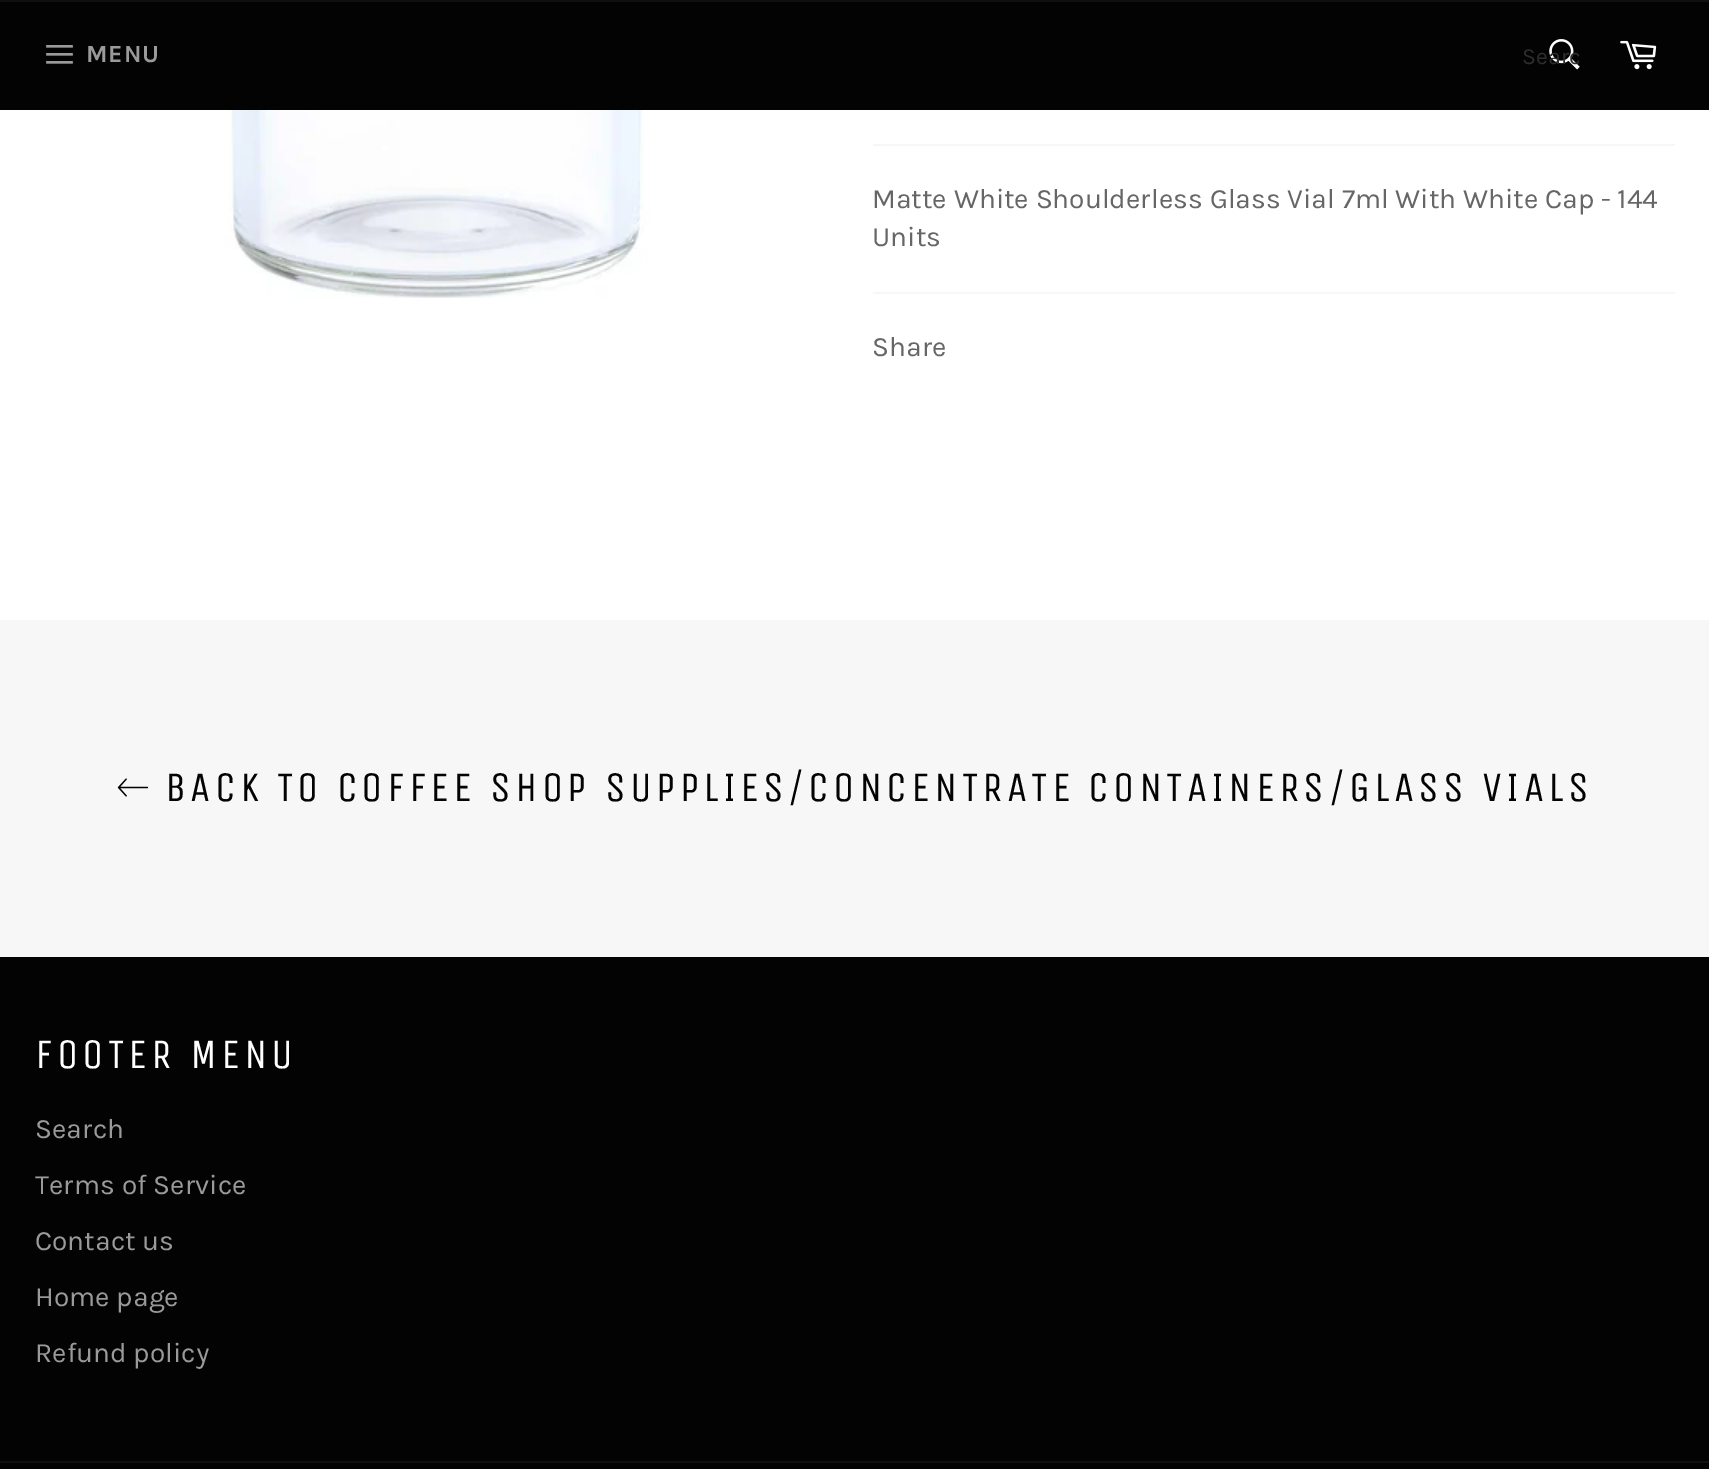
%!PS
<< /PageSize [1709 1469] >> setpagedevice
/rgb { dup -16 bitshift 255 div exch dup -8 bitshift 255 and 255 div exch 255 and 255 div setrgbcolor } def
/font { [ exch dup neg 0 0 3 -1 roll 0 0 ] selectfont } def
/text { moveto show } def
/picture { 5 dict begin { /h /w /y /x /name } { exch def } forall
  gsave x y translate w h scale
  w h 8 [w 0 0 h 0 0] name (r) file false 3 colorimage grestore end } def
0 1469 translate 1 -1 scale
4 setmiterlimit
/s1 { /Karla-Regular 23 font 16#2D2D2D rgb } def
/s2 { /Karla-Regular 28 font 16#666666 rgb } def
/s3 { /Karla-Regular 28 font 16#9A9A9A rgb } def
16#FFFFFF rgb
0 0 1709 1469 rectfill
16#030303 rgb
0 2 1709 108 rectfill
16#101010 rgb
0 0 1709 2 rectfill
(pic1.raw) 46 45 27 19 picture
/Karla-Bold 24.5 font
16#9A9A9A rgb
86 62 moveto 1 0 (MENU) ashow
(pic2.raw) 1549 39 31 31 picture
gsave
1523 44 56 26 rectclip
s1
(Searc) 1522 64 text
grestore
(pic3.raw) 1620 40 37 30 picture
(pic4.raw) 214 110 445 188 picture
16#F7F7F7 rgb
873 144 802 2 rectfill
s2
(Matte White Shoulderless Glass Vial 7ml With White Cap - 144) 872 208 text
(Units) 872 246 text
16#F7F7F7 rgb
873 292 802 2 rectfill
s2
(Share) 872 356 text
16#F7F7F7 rgb
0 620 1709 337 rectfill
(pic5.raw) 117 778 32 19 picture
/UnicaOne-Regular 42 font
16#030303 rgb
165 801 moveto 4.2 0 (BACK TO COFFEE SHOP SUPPLIES/CONCENTRATE CONTAINERS/GLASS VIALS) ashow
0 957 1709 512 rectfill
16#FFFFFF rgb
35 1068 moveto 4.2 0 (FOOTER MENU) ashow
s3
(Search) 35 1138 text
(Terms of Service) 35 1194 text
(Contact us) 35 1250 text
(Home page) 35 1306 text
(Refund policy) 35 1362 text
16#101010 rgb
0 1461 1709 2 rectfill
showpage
